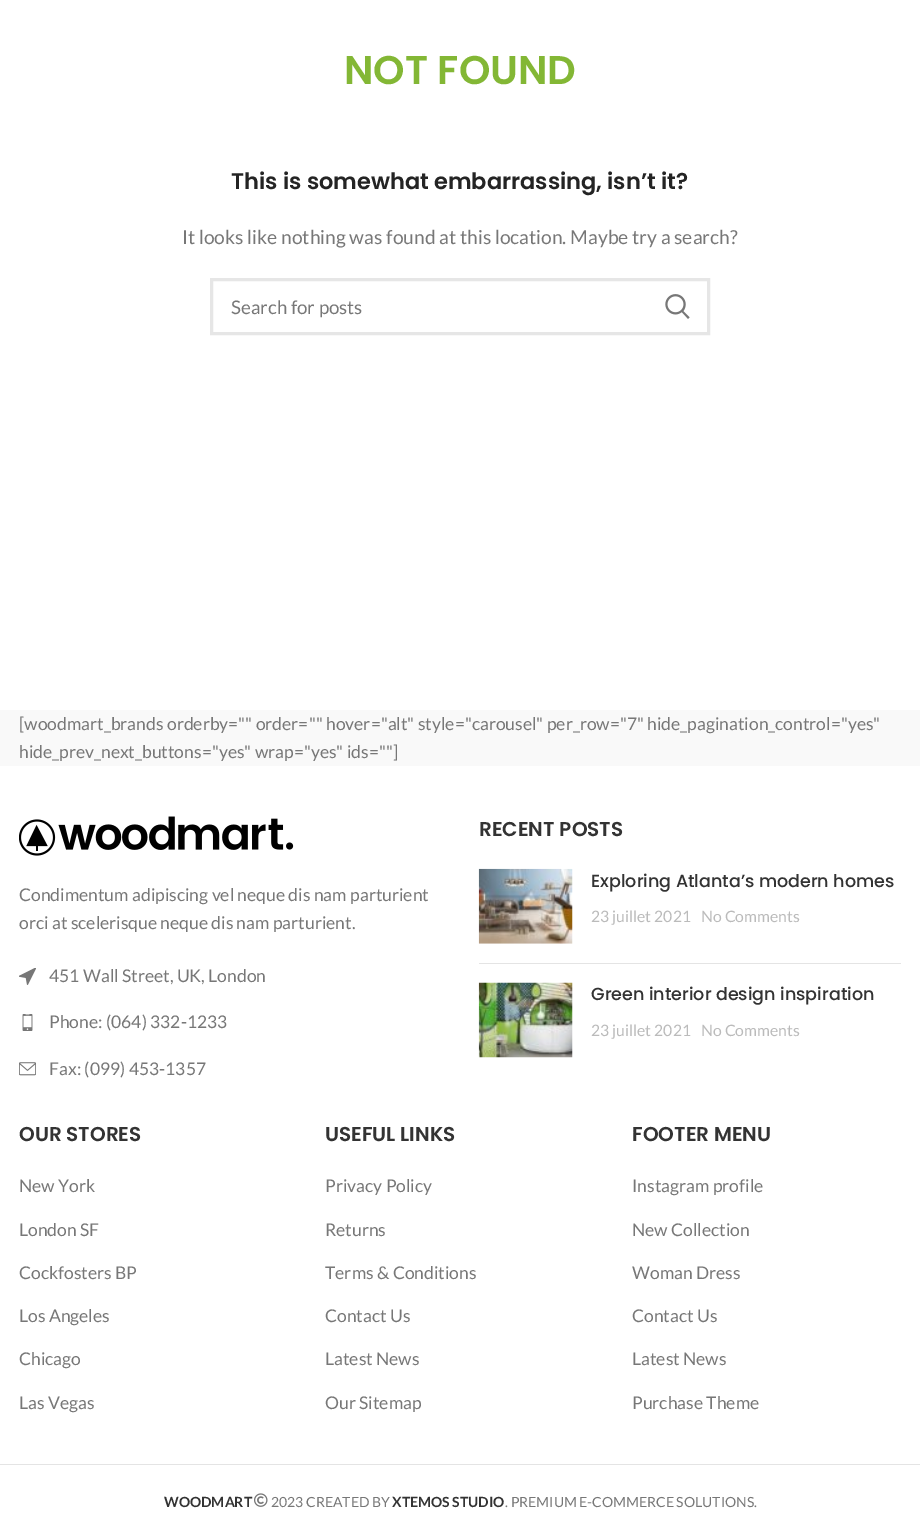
%!PS
<< /PageSize [920 1519] >> setpagedevice
/rgb { dup -16 bitshift 255 div exch dup -8 bitshift 255 and 255 div exch 255 and 255 div setrgbcolor } def
/font { [ exch dup neg 0 0 3 -1 roll 0 0 ] selectfont } def
/text { moveto show } def
/picture { 5 dict begin { /h /w /y /x /name } { exch def } forall
  gsave x y translate w h scale
  w h 8 [w 0 0 h 0 0] name (r) file false 3 colorimage grestore end } def
0 1519 translate 1 -1 scale
4 setmiterlimit
/s1 { /Poppins-SemiBold 40 font 16#83B735 rgb } def
/s2 { /Poppins-SemiBold 22.5 font 16#242424 rgb } def
/s3 { /Lato-Regular 19.25 font 16#777777 rgb } def
/s4 { /Lato-Regular 18.75 font 16#777777 rgb } def
/s5 { /Lato-Regular 17.5 font 16#777777 rgb } def
/s6 { /Poppins-SemiBold 20 font 16#333333 rgb } def
/s7 { /Poppins-Medium 17.5 font 16#333333 rgb } def
/s8 { /Lato-Regular 15.75 font 16#BBBBBB rgb } def
/s9 { /Lato-Bold 14 font 16#333333 rgb } def
/s10 { /Lato-Regular 14 font 16#777777 rgb } def
16#FFFFFF rgb
0 0 920 1519 rectfill
s1
(NOT FOUND) 344 84 text
s2
(This is somewhat embarrassing, isn’t it?) 231 189 text
s3
(It looks like nothing was found at this location. Maybe try a search?) 182 244 text
16#E6E6E6 rgb
3 setlinewidth
211.5 279.5 497 54 rectstroke
s4
(Search for posts) 231 314 text
(pic1.raw) 665 294 25 25 picture
16#F9F9F9 rgb
0 710 920 56 rectfill
s5
([woodmart_brands orderby="" order="" hover="alt" style="carousel" per_row="7" hide_pagination_control="yes") 19 730 text
(hide_prev_next_buttons="yes" wrap="yes" ids=""]) 19 758 text
(pic2.raw) 19 816 275 40 picture
(Condimentum adipiscing vel neque dis nam parturient) 19 901 text
(orci at scelerisque neque dis nam parturient.) 19 929 text
(pic3.raw) 19 968 17 17 picture
(451 Wall Street, UK, London) 49 982 text
(pic4.raw) 22 1014 11 17 picture
(Phone: \(064\) 332-1233) 49 1028 text
(pic5.raw) 19 1062 17 14 picture
(Fax: \(099\) 453-1357) 49 1075 text
s6
(RECENT POSTS) 479 836 text
16#E4E4E4 rgb
479 963 422 1 rectfill
(pic6.raw) 478 868 95 76 picture
s7
(Exploring Atlanta’s modern homes) 591 887 text
s8
(23 juillet 2021) 591 922 text
(No Comments) 701 922 text
(pic7.raw) 478 982 95 76 picture
s7
(Green interior design inspiration) 591 1000 text
s8
(23 juillet 2021) 591 1036 text
(No Comments) 701 1036 text
s6
(OUR STORES) 19 1141 text
s5
(New York) 19 1192 text
(London SF) 19 1236 text
(Cockfosters BP) 19 1279 text
(Los Angeles) 19 1322 text
(Chicago) 19 1365 text
(Las Vegas) 19 1409 text
s6
(USEFUL LINKS) 325 1141 text
s5
(Privacy Policy) 325 1192 text
(Returns) 325 1236 text
(Terms & Conditions) 325 1279 text
(Contact Us) 325 1322 text
(Latest News) 325 1365 text
(Our Sitemap) 325 1409 text
s6
(FOOTER MENU) 632 1141 text
s5
(Instagram profile) 632 1192 text
(New Collection) 632 1236 text
(Woman Dress) 632 1279 text
(Contact Us) 632 1322 text
(Latest News) 632 1365 text
(Purchase Theme) 632 1409 text
16#E4E4E4 rgb
0 1464 920 1 rectfill
s9
(WOODMART) 164 1507 text
(pic8.raw) 254 1493 14 14 picture
s10
(2023 CREATED BY) 271 1507 text
s9
(XTEMOS STUDIO) 392 1507 text
s10
(. PREMIUM E-COMMERCE SOLUTIONS.) 505 1507 text
showpage
